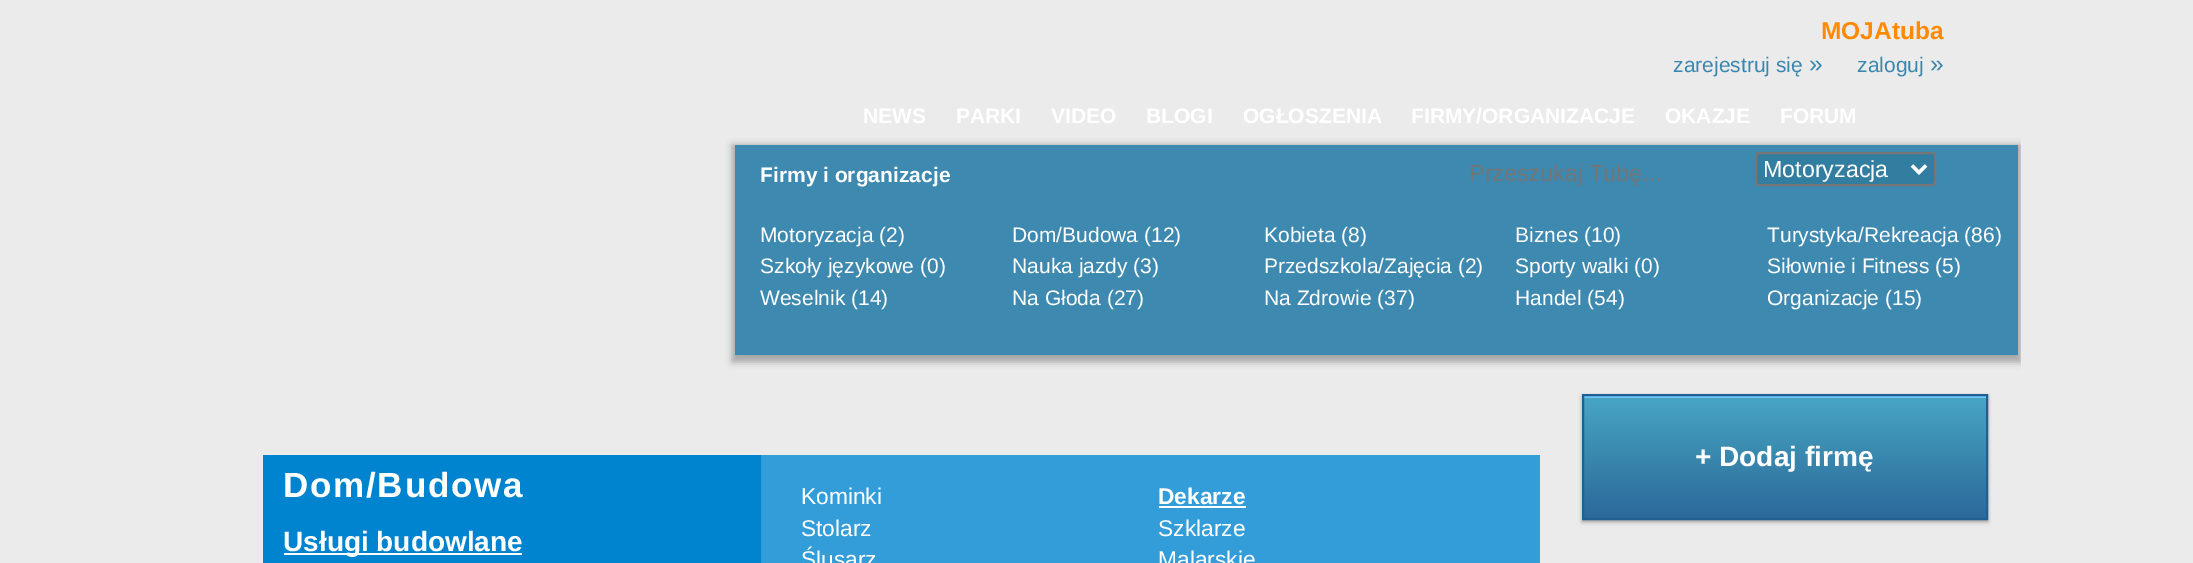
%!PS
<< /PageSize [2193 563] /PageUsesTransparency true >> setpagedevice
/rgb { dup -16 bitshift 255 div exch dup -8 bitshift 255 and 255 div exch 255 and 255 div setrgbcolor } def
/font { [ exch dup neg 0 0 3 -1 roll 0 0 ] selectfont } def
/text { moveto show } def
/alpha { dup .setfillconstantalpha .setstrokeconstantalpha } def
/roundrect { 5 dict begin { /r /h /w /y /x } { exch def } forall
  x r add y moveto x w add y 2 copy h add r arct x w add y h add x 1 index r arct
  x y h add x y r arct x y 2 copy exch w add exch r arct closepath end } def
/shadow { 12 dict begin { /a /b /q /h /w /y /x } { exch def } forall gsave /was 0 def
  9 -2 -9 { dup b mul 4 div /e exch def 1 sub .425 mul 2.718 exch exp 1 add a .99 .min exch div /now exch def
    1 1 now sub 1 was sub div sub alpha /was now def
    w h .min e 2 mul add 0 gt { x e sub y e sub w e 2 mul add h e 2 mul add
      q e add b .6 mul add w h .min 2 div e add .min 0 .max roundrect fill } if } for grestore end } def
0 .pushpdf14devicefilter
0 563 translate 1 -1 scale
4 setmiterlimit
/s1 { /LiberationSans-Bold 24.5 font 16#FF8A00 rgb } def
/s2 { /LiberationSans-Regular 21 font 16#3987AE rgb } def
/s3 { /LiberationSans-Regular 24.5 font 16#3987AE rgb } def
/s4 { /LiberationSans-Bold 21 font 16#FFFFFF rgb } def
/s5 { /LiberationSans-Regular 23.25 font 16#757575 rgb } def
/s6 { /LiberationSans-Regular 23.25 font 16#FFFFFF rgb } def
/s7 { /LiberationSans-Regular 21 font 16#FFFFFF rgb } def
/s8 { /LiberationSans-Bold 28 font 16#FFFFFF rgb } def
/s9 { /LiberationSans-Regular 22.75 font 16#FFFFFF rgb } def
/s10 { /LiberationSans-Bold 22.75 font 16#FFFFFF rgb } def
16#EBEBEB rgb
0 0 2193 563 rectfill
s1
(MOJAtuba) 1821 39 text
s2
(zarejestruj się) 1673 72 text
s3
(») 1809 72 text
s2
(zaloguj) 1857 72 text
s3
(») 1930 72 text
s4
(NEWS) 863 123 text
(PARKI) 956 123 text
(VIDEO) 1051 123 text
(BLOGI) 1146 123 text
(OGŁOSZENIA) 1243 123 text
(FIRMY/ORGANIZACJE) 1411 123 text
(OKAZJE) 1665 123 text
(FORUM) 1780 123 text
gsave
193 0 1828 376 rectclip
16#000000 rgb
732 145 1289 217 0 3.5 0.3 shadow
grestore
16#3E89B0 rgb
735 145 1283 210 rectfill
s4
(Firmy i organizacje) 760 182 text
s5
(Przeszukaj Tubę...) 1469 181 text
16#327EA0 rgb
1756 153 179 32 3 roundrect gsave fill grestore
16#767676 rgb
2 setlinewidth
stroke
16#FFFFFF rgb
3.5 setlinewidth
1912 165.5 moveto 1919 172.5 lineto 1926 165.5 lineto stroke
(Motoryzacja) 1763 177 text
s7
(Motoryzacja \(2\)) 760 242 text
(Dom/Budowa \(12\)) 1012 242 text
(Kobieta \(8\)) 1264 242 text
(Biznes \(10\)) 1515 242 text
(Turystyka/Rekreacja \(86\)) 1767 242 text
(Szkoły językowe \(0\)) 760 273 text
(Nauka jazdy \(3\)) 1012 273 text
(Przedszkola/Zajęcia \(2\)) 1264 273 text
(Sporty walki \(0\)) 1515 273 text
(Siłownie i Fitness \(5\)) 1767 273 text
(Weselnik \(14\)) 760 305 text
(Na Głoda \(27\)) 1012 305 text
(Na Zdrowie \(37\)) 1264 305 text
(Handel \(54\)) 1515 305 text
(Organizacje \(15\)) 1767 305 text
16#323232 rgb
1582 396 406 126 0 2 0.4 shadow
gsave 1584 398 moveto 1986 398 lineto 1986 518 lineto 1584 518 lineto closepath clip newpath
<< /ShadingType 2 /ColorSpace /DeviceRGB /Coords [1785 396 1785 518] /Extend [true true] /Function << /FunctionType 2 /Domain [0 1] /C0 [0.282 0.651 0.765] /C1 [0.169 0.412 0.604] /N 1 >> >> shfill grestore
16#71C8FF rgb
1584 396 402 2 rectfill
16#1F6091 rgb
2 setlinewidth
1583 395 404 124 rectstroke
s8
(+ Dodaj firmę) 1695 466 text
16#0084CF rgb
263 455 498 108 rectfill
/LiberationSans-Bold 35 font
16#FFFFFF rgb
283 497 moveto 1.75 0 (Dom/Budowa) ashow
284 553 238 2 rectfill
s8
(Usługi budowlane) 283 551 text
16#339DD9 rgb
761 455 779 108 rectfill
s9
(Kominki) 801 504 text
s10
(Dekarze) 1158 504 text
1159 506 87 2 rectfill
s9
(Stolarz) 801 536 text
(Szklarze) 1158 536 text
(Ślusarz) 801 567 text
(Malarskie) 1158 567 text
.poppdf14devicefilter showpage
